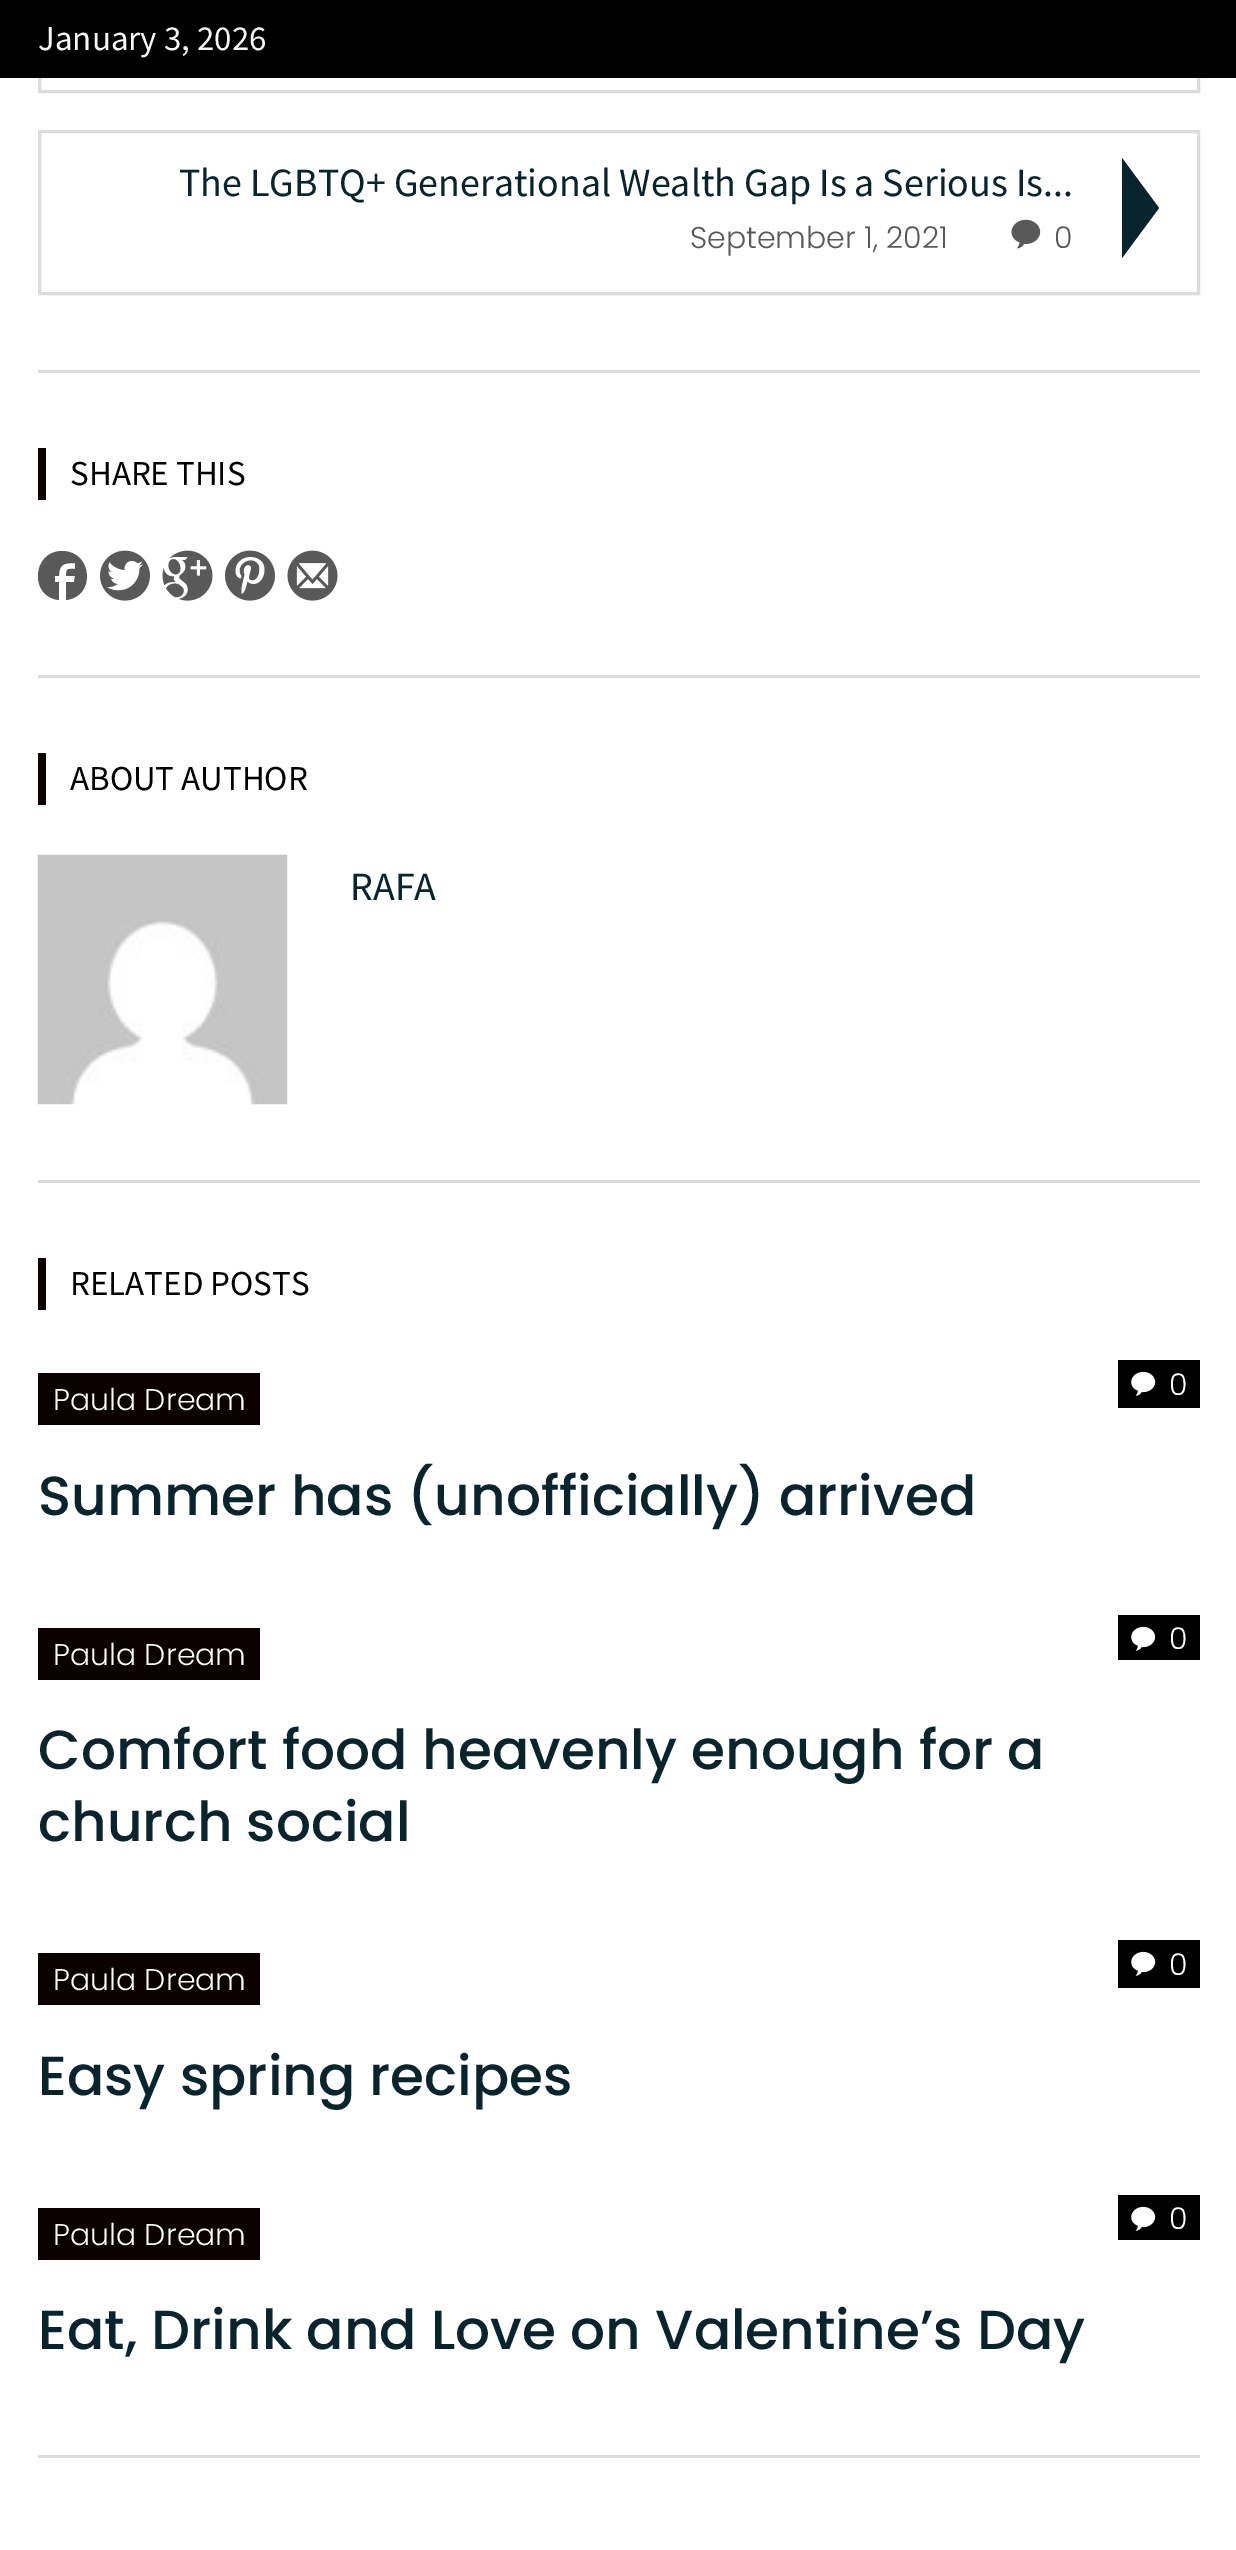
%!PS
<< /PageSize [1236 2550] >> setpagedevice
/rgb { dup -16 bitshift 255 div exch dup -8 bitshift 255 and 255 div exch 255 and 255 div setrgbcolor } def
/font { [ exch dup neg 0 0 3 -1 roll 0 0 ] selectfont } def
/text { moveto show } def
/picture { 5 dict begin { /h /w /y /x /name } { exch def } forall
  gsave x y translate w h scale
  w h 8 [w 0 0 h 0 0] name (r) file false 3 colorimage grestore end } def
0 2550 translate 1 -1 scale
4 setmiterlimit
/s1 { /SourceSansPro-Regular 35 font 16#F7F7F7 rgb } def
/s2 { /SourceSansPro-Regular 40 font 16#0A242E rgb } def
/s3 { /Poppins-Light 30 font 16#595959 rgb } def
/s4 { /SourceSansPro-Regular 35 font 16#000000 rgb } def
/s5 { /Poppins-Light 30 font 16#FFFFFF rgb } def
/s6 { /Poppins-Medium 55 font 16#0A242E rgb } def
16#FFFFFF rgb
0 0 1236 2550 rectfill
16#DCDCDC rgb
3 setlinewidth
39.5 -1.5 1159 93 rectstroke
16#000000 rgb
0 0 1236 78 rectfill
s1
(January 3, 2026) 38 50 text
16#DCDCDC rgb
39.5 131.5 1159 162 rectstroke
s2
(The LGBTQ+ Generational Wealth Gap Is a Serious Is...) 179 196 text
s3
(September 1, 2021) 690 248 text
(pic1.raw) 1011 219 30 30 picture
(0) 1054 248 text
16#0A242E rgb
1159 208 moveto 1122 258 lineto 1122 158 lineto closepath fill
16#DCDCDC rgb
38 370 1162 3 rectfill
16#0C0101 rgb
38 448 8 52 rectfill
s4
(SHARE THIS) 70 485 text
16#595959 rgb
62 551 moveto 93 551 96 597 66 600 curveto 66 582 lineto 74 582 lineto 75 576 lineto 66 576 lineto 66 568 68 569 75 569 curveto 75 563 lineto 64 563 59 564 59 576 curveto 55 576 lineto 55 582 lineto 59 582 lineto 59 600 lineto 29 597 32 551 62 551 curveto closepath fill
(pic2.raw) 100 550 50 51 picture
(pic3.raw) 162 550 51 51 picture
(pic4.raw) 225 550 50 51 picture
(pic5.raw) 287 550 51 51 picture
16#DCDCDC rgb
38 675 1162 3 rectfill
16#0C0101 rgb
38 753 8 52 rectfill
s4
(ABOUT AUTHOR) 70 790 text
(pic6.raw) 37 854 251 251 picture
s2
(RAFA) 350 900 text
16#DCDCDC rgb
38 1180 1162 3 rectfill
16#0C0101 rgb
38 1258 8 52 rectfill
s4
(RELATED POSTS) 70 1295 text
1118 1360 82 48 rectfill
(pic7.raw) 1131 1371 25 25 picture
s5
(0) 1169 1395 text
16#0C0101 rgb
38 1373 222 52 rectfill
s5
(Paula Dream) 53 1410 text
s6
(Summer has \(unofficially\) arrived) 38 1515 text
16#000000 rgb
1118 1615 82 45 rectfill
(pic7.raw) 1131 1626 25 25 picture
s5
(0) 1169 1649 text
16#0C0101 rgb
38 1628 222 52 rectfill
s5
(Paula Dream) 53 1665 text
s6
(Comfort food heavenly enough for a) 38 1769 text
(church social) 38 1841 text
16#000000 rgb
1118 1940 82 48 rectfill
(pic7.raw) 1131 1951 25 25 picture
s5
(0) 1169 1975 text
16#0C0101 rgb
38 1953 222 52 rectfill
s5
(Paula Dream) 53 1990 text
s6
(Easy spring recipes) 38 2095 text
16#000000 rgb
1118 2195 82 45 rectfill
(pic7.raw) 1131 2206 25 25 picture
s5
(0) 1169 2229 text
16#0C0101 rgb
38 2208 222 52 rectfill
s5
(Paula Dream) 53 2245 text
s6
(Eat, Drink and Love on Valentine’s Day) 38 2349 text
16#DCDCDC rgb
38 2455 1162 3 rectfill
showpage
